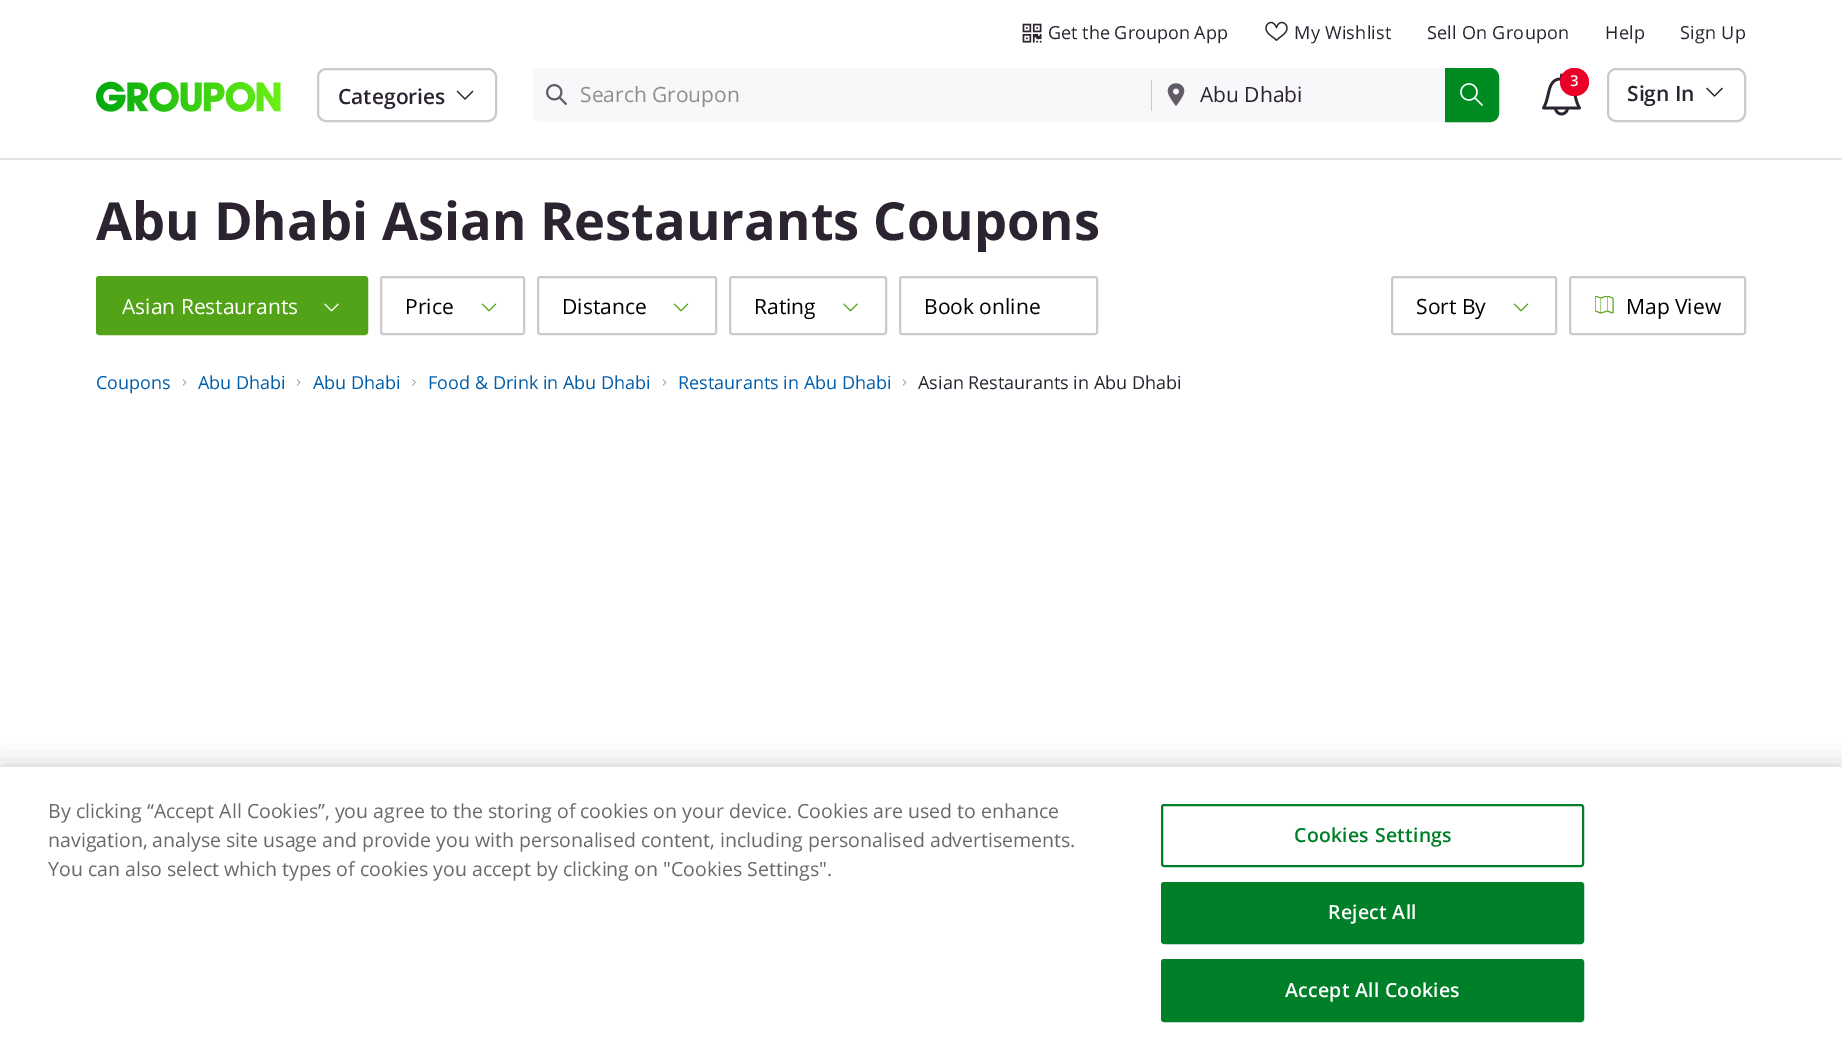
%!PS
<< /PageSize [1842 1051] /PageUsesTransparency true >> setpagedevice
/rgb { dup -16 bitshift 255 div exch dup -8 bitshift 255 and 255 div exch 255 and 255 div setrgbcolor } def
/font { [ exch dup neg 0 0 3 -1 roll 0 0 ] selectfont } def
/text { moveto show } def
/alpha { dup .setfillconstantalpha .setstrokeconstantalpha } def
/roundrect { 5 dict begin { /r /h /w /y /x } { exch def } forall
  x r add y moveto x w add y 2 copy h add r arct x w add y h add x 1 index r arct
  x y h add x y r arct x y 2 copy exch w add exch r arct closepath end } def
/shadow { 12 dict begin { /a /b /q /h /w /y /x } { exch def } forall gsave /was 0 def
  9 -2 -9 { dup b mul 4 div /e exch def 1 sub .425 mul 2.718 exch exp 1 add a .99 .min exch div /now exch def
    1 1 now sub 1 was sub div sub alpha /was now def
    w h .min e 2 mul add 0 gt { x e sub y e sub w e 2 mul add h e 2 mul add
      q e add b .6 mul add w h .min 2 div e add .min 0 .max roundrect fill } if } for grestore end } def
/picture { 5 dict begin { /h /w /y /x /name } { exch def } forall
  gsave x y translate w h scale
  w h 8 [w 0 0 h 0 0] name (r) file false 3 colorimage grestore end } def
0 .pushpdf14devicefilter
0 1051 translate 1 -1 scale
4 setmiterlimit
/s1 { /OpenSans-Regular 18 font 16#2B2430 rgb } def
/s2 { /OpenSans-SemiBold 21 font 16#2B2430 rgb } def
/s3 { /OpenSans-Regular 21 font 16#8F8E91 rgb } def
/s4 { /OpenSans-Regular 21 font 16#2B2430 rgb } def
/s5 { /OpenSans-SemiBold 15 font 16#FFFFFF rgb } def
/s6 { /OpenSans-Bold 52.5 font 16#2B2430 rgb } def
/s7 { /OpenSans-Regular 21 font 16#FFFFFF rgb } def
/s8 { /OpenSans-Regular 21 font 16#000000 rgb } def
/s9 { /OpenSans-Regular 18 font 16#005EAB rgb } def
/s10 { /OpenSans-Regular 19.5 font 16#696969 rgb } def
16#FFFFFF rgb
0 0 1842 1051 rectfill
(pic1.raw) 1022 23 20 20 picture
s1
(Get the Groupon App) 1048 39 text
(pic2.raw) 1265 21 23 20 picture
1294 39 moveto 0.25 0 (My Wishlist) ashow
1427 39 moveto 0.25 0 (Sell On Groupon) ashow
1605 39 moveto 0.25 0 (Help) ashow
1680 39 moveto 0.25 0 (Sign Up) ashow
(pic3.raw) 96 81 185 31 picture
16#CACACC rgb
2 setlinewidth
318 69 178 52 8 roundrect stroke
s2
(Categories) 338 104 text
(pic4.raw) 456 90 18 10 picture
16#F8F7FA rgb
533 68 966 54 9 roundrect fill
533 68 618 52 6 roundrect fill
(pic5.raw) 546 84 21 21 picture
s3
(Search Groupon) 580 102 text
16#CACACC rgb
1151 80 1 31 rectfill
(pic6.raw) 1167 83 18 23 picture
s4
(Abu Dhabi) 1200 102 text
16#008A22 rgb
1446 69 moveto 1490 69 lineto 1494.5 69 1498 72.5 1498 77 curveto 1498 113 lineto 1498 117.5 1494.5 121 1490 121 curveto 1446 121 lineto closepath gsave fill grestore
stroke
(pic7.raw) 1460 83 23 23 picture
(pic8.raw) 1542 73 39 43 picture
16#EB0028 rgb
1560 68 29 28 14 roundrect fill
s5
(3) 1570 86 text
16#CACACC rgb
1608 69 137 52 8 roundrect stroke
s2
(Sign In) 1627 101 text
(pic9.raw) 1706 87 17 10 picture
16#E4E4E6 rgb
0 158 1842 2 rectfill
gsave
96 189 1650 63 rectclip
s6
(Abu Dhabi Asian Restaurants Coupons) 96 240 text
grestore
16#53A318 rgb
97 277 270 57 2 roundrect gsave fill grestore
stroke
s7
(Asian Restaurants) 122 314 text
(pic10.raw) 324 303 15 9 picture
16#CACACC rgb
381 277 143 57 2 roundrect stroke
s8
(Price) 405 314 text
(pic11.raw) 481 303 16 9 picture
16#CACACC rgb
538 277 178 57 2 roundrect stroke
s8
(Distance) 562 314 text
(pic11.raw) 673 303 16 9 picture
16#CACACC rgb
730 277 156 57 2 roundrect stroke
s8
(Rating) 754 314 text
(pic12.raw) 843 303 15 9 picture
16#CACACC rgb
900 277 197 57 2 roundrect stroke
s8
(Book online) 924 314 text
16#CACACC rgb
1392 277 164 57 2 roundrect stroke
s8
(Sort By) 1416 314 text
(pic11.raw) 1513 303 16 9 picture
16#CACACC rgb
1570 277 175 57 2 roundrect stroke
(pic13.raw) 1595 296 19 18 picture
s8
(Map View) 1626 314 text
s9
(Coupons) 96 389 text
(pic14.raw) 182 379 5 7 picture
(Abu Dhabi) 198 389 text
(pic14.raw) 296 379 5 7 picture
(Abu Dhabi) 313 389 text
(pic15.raw) 412 379 4 7 picture
(Food & Drink in Abu Dhabi) 428 389 text
(pic14.raw) 662 379 5 7 picture
(Restaurants in Abu Dhabi) 678 389 text
(pic14.raw) 902 379 5 7 picture
s1
(Asian Restaurants in Abu Dhabi) 918 389 text
16#000000 rgb
0 767 1842 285 0 13.5 0.2 shadow
16#FFFFFF rgb
0 767 1842 284 rectfill
s10
(By clicking “Accept All Cookies”, you agree to the storing of cookies on your device. Cookies are used to enhance) 48 818 text
(navigation, analyse site usage and provide you with personalised content, including personalised advertisements.) 48 847 text
(You can also select which types of cookies you accept by clicking on "Cookies Settings".) 48 876 text
16#007F29 rgb
1162 805 421 61 2 roundrect stroke
/OpenSans-SemiBold 19.5 font
1294 842 moveto 0.25 0 (Cookies Settings) ashow
1162 883 421 60 2 roundrect gsave fill grestore
stroke
16#FFFFFF rgb
1328 919 moveto 0.25 0 (Reject All) ashow
16#007F29 rgb
1162 960 421 61 2 roundrect gsave fill grestore
stroke
16#FFFFFF rgb
1285 997 moveto 0.25 0 (Accept All Cookies) ashow
.poppdf14devicefilter showpage
